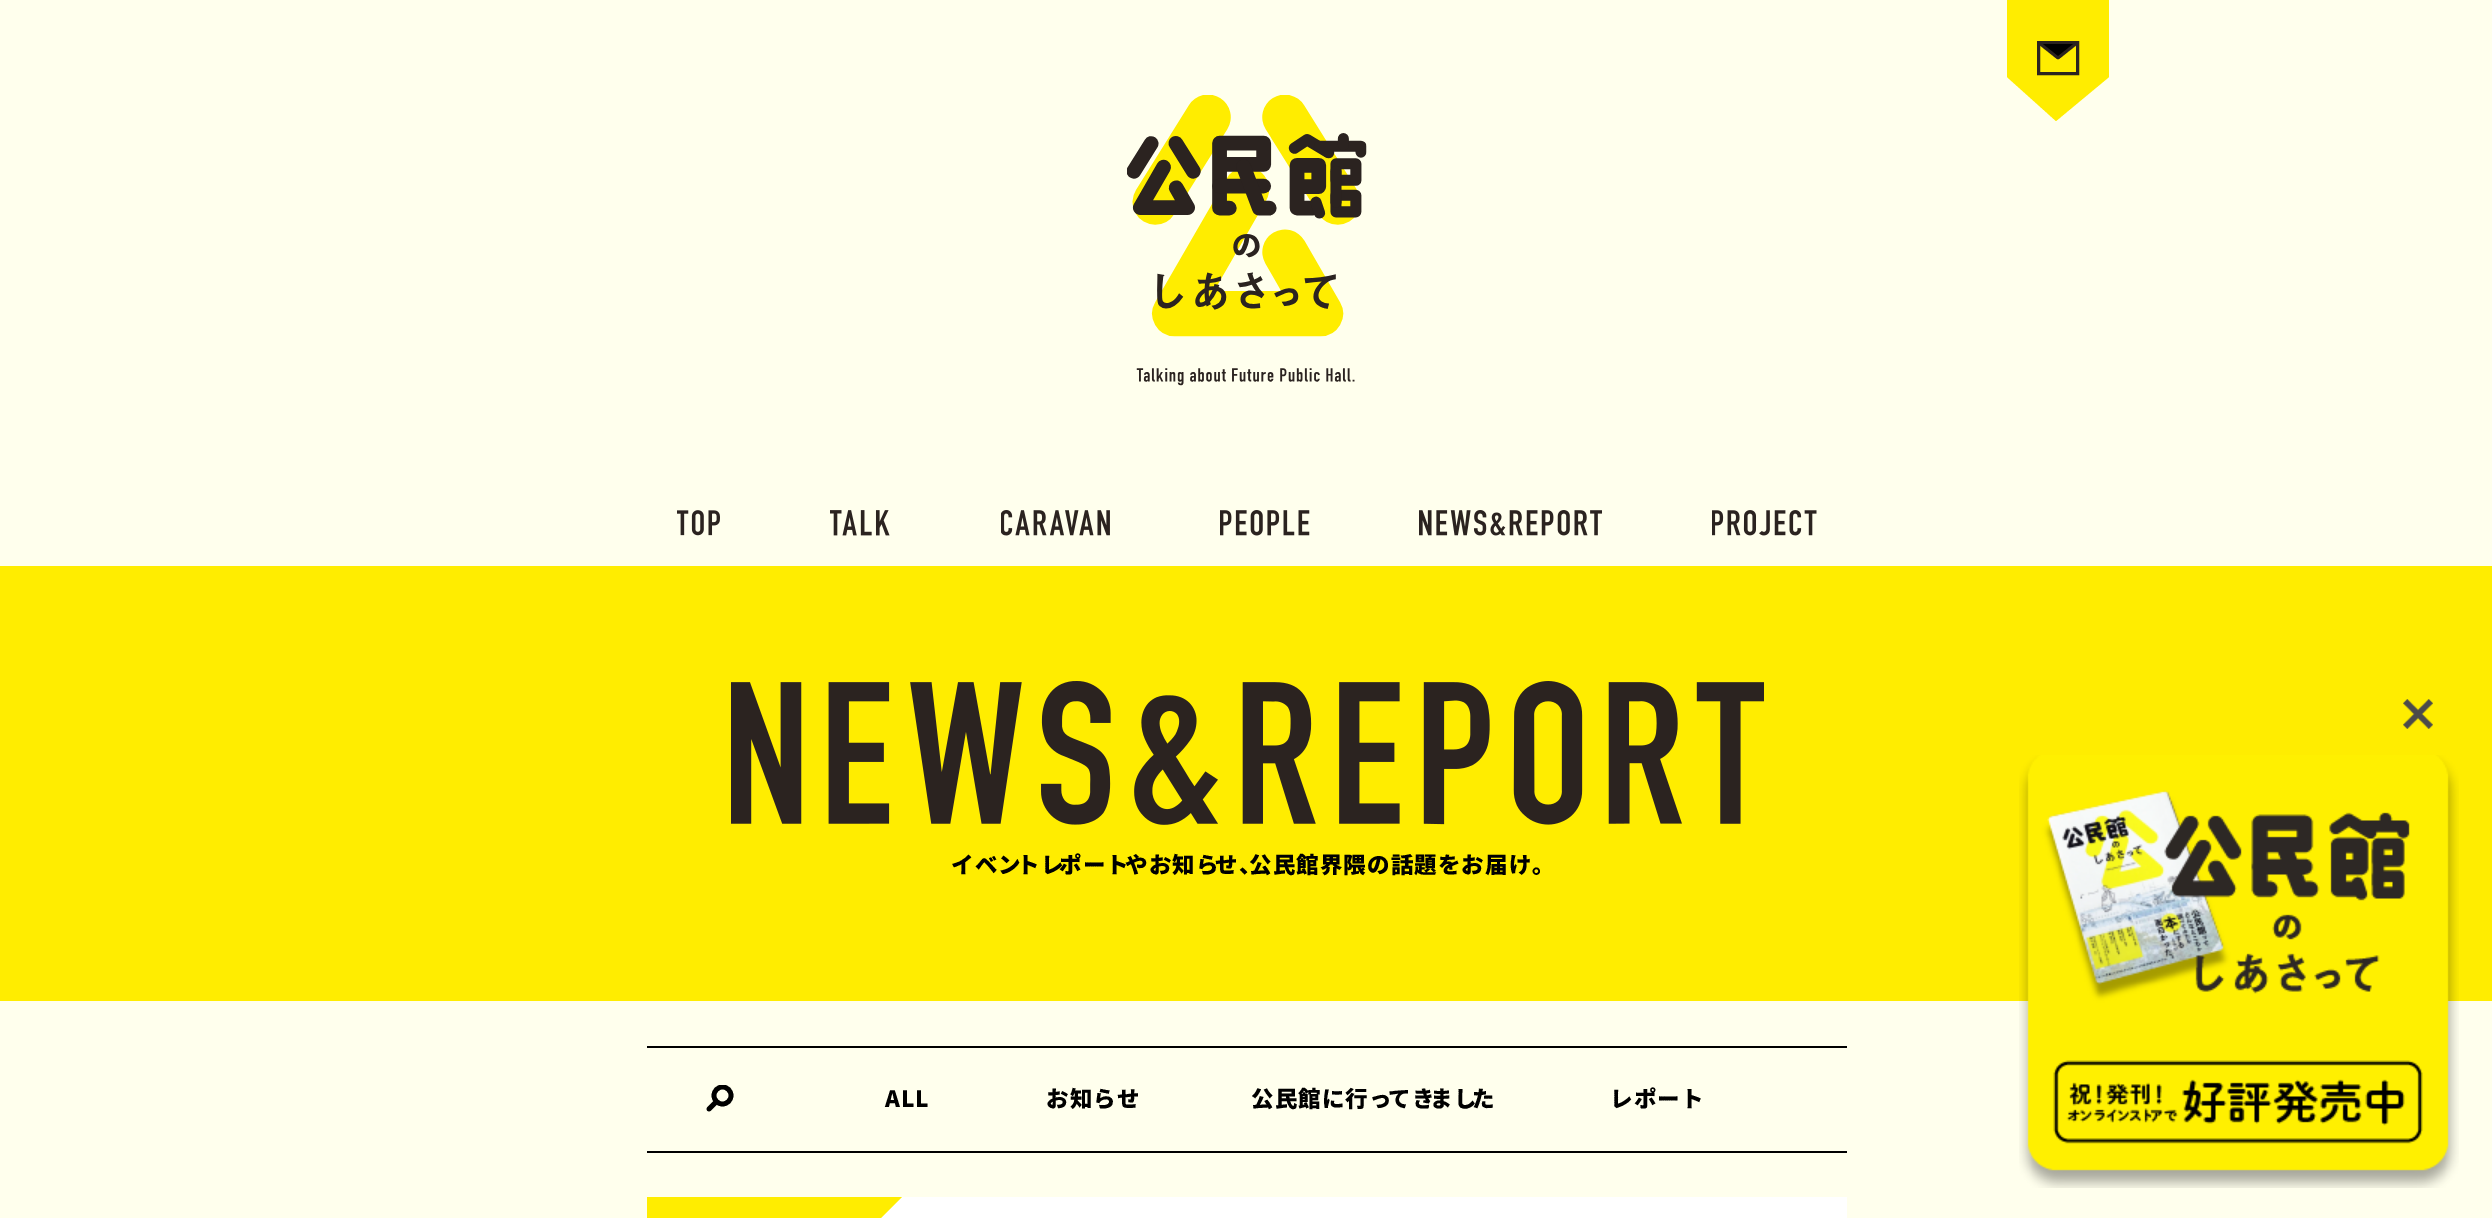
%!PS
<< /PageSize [2492 1218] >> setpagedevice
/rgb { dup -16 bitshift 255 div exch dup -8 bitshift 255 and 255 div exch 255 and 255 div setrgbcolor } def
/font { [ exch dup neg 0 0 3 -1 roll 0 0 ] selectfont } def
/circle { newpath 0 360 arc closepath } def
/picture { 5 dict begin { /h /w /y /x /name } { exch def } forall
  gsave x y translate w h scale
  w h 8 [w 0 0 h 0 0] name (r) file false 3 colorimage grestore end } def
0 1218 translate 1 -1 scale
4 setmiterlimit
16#FFFFED rgb
0 0 2492 1218 rectfill
16#FFED00 rgb
2109 77 moveto 2056 121 lineto 2007 77 lineto 2007 -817 lineto 2109 -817 lineto closepath fill
16#2B2320 rgb
3 setlinewidth
2038.5 42.5 39 31 rectstroke
16#000000 rgb
2038.5 42.5 moveto 2058 58 lineto 2077.5 42.5 lineto closepath gsave fill grestore
16#2B2320 rgb
2.8 setlinewidth
1 setlinejoin
stroke
(pic1.raw) 1127 95 240 291 picture
(pic2.raw) 677 510 43 26 picture
(pic3.raw) 830 510 60 26 picture
(pic4.raw) 1001 510 109 26 picture
(pic5.raw) 1220 510 90 26 picture
(pic6.raw) 1419 510 183 26 picture
(pic7.raw) 1712 510 105 26 picture
16#FFED00 rgb
0 566 2492 435 rectfill
(pic8.raw) 731 681 1033 144 picture
/NotoSansJP-Black 22.5 font
16#000000 rgb
951 873 moveto 1.1 0 (イベン) ashow
1017 873 moveto 1.1 0 (トレ) ashow
1059 873 moveto 1.1 0 (ポート) ashow
1125 873 moveto 1.1 0 (やお知ら) ashow
1215 873 moveto 1.1 0 (せ、) ashow
1249 873 moveto 1.1 0 (公民館界隈の話題をお届け。) ashow
gsave
707 1085 27 27 rectclip
4.7 setlinewidth
0 setlinejoin
722.5 1095.5 8.5 circle stroke
grestore
4.7 setlinewidth
1 setlinecap
0 setlinejoin
716 1102 moveto 709 1109 lineto stroke
647 1046 1200 2 rectfill
647 1151 1200 2 rectfill
885 1107 moveto 1.1 0 (ALL) ashow
1046 1107 moveto 1.1 0 (お知らせ) ashow
1251 1107 moveto 1.1 0 (公民館に行っ) ashow
1388 1107 moveto 1.1 0 (てき) ashow
1430 1107 moveto 1.1 0 (まし) ashow
1472 1107 moveto 1.1 0 (た) ashow
1610 1107 moveto 1.1 0 (レポート) ashow
16#FFFFFF rgb
881 1197 966 21 rectfill
gsave
647 1197 255 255 rectclip
16#FFED00 rgb
646 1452 moveto 646 1197 lineto 902 1197 lineto closepath fill
grestore
(pic9.raw) 2403 699 30 30 picture
(pic10.raw) 2019 755 440 433 picture
showpage
